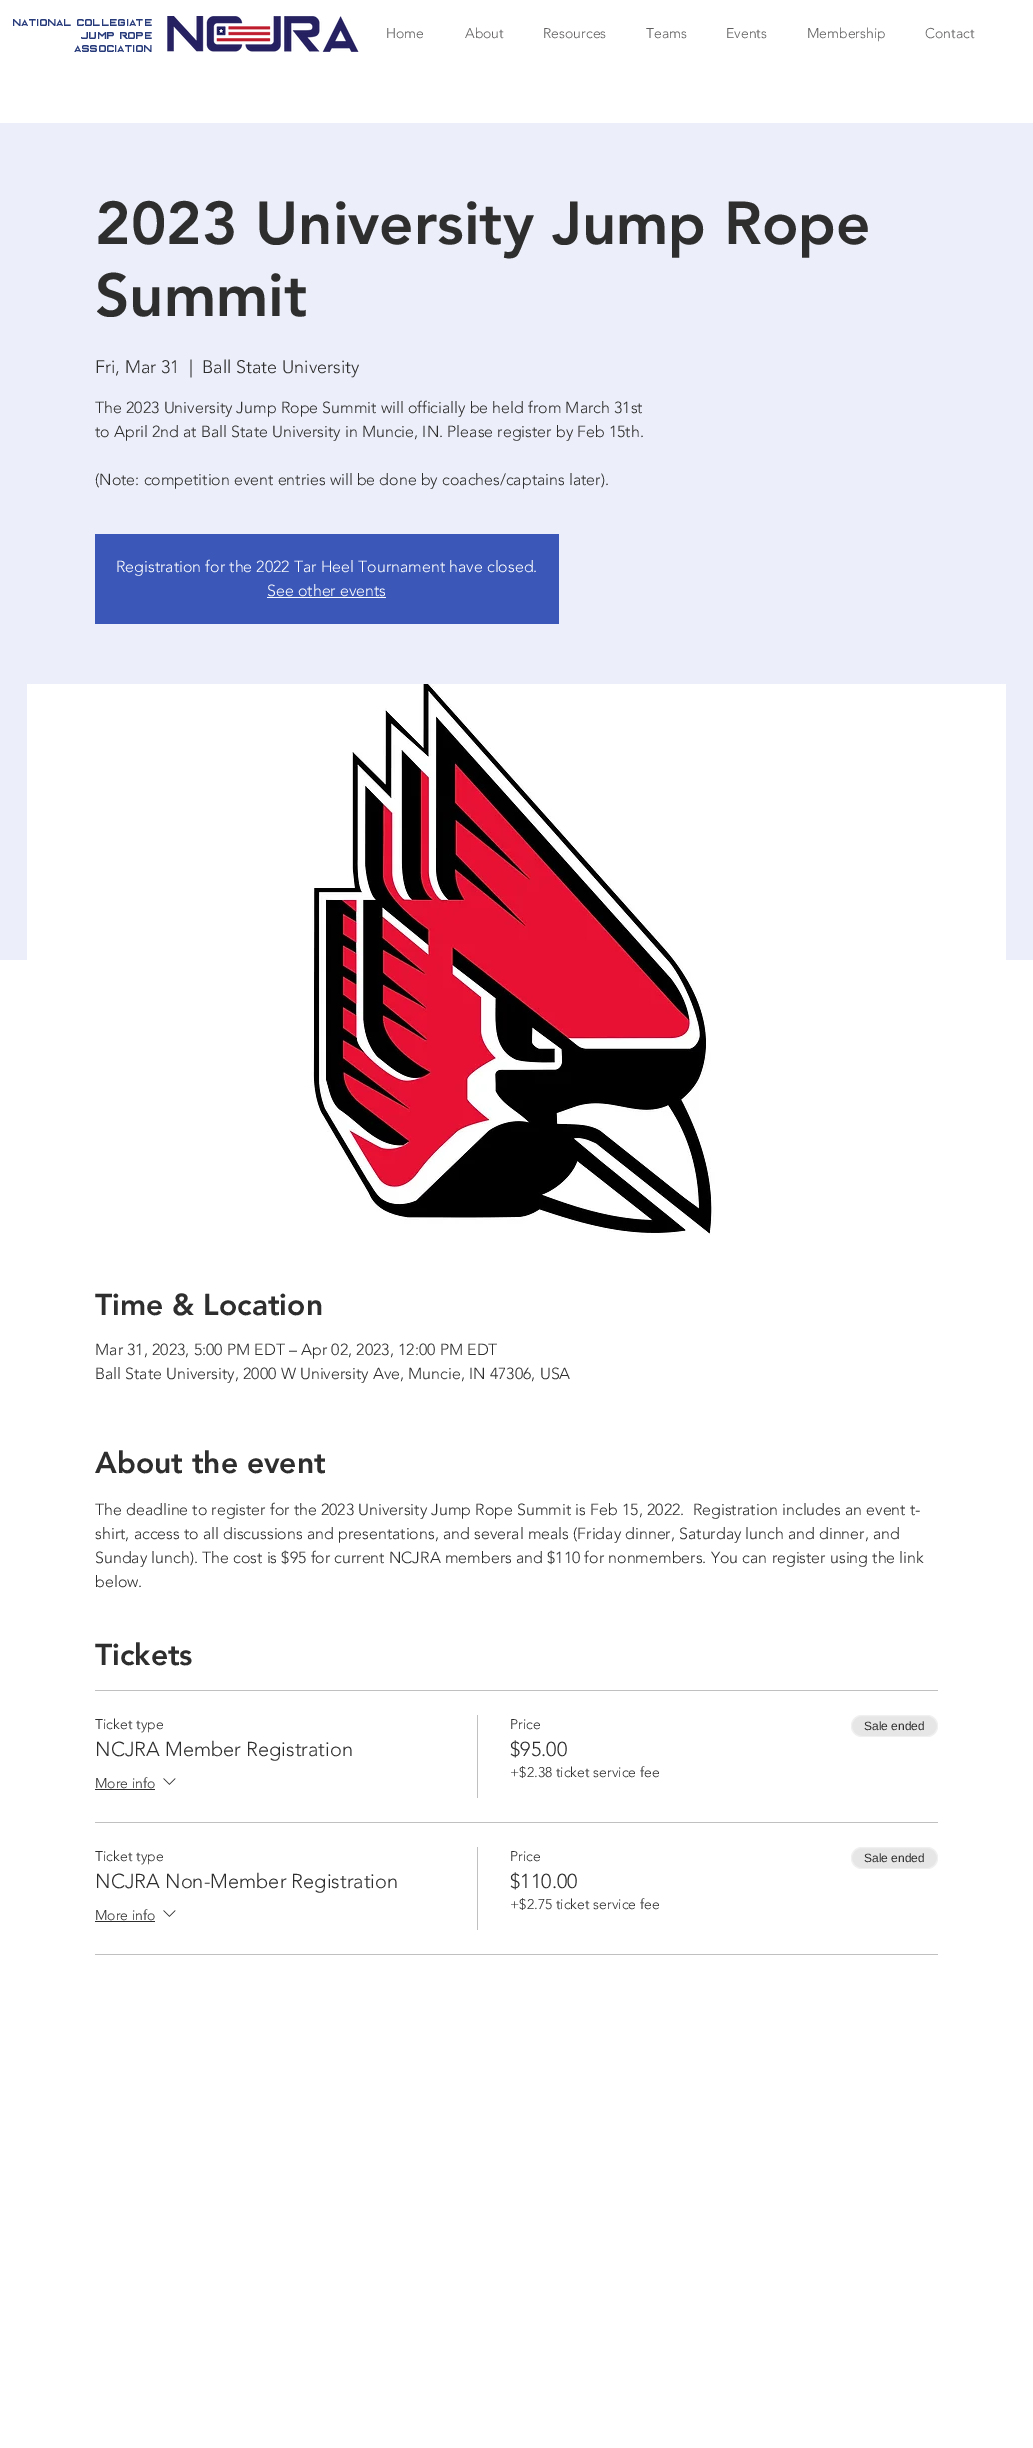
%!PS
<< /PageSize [1033 2448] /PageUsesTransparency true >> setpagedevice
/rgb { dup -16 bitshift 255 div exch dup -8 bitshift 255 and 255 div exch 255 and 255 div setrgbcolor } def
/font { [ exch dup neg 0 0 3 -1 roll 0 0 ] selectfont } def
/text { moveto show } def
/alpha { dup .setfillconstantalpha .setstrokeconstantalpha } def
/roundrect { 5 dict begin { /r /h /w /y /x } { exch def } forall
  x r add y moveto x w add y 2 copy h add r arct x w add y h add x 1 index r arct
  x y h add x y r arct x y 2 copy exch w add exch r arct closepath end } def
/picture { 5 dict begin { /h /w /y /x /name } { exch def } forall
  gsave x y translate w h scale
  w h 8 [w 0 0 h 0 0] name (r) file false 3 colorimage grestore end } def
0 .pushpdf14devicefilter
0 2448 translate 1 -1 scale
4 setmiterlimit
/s1 { /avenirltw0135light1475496-Light 14 font 16#605E5E rgb } def
/s2 { /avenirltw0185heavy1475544-Black 60 font 16#2F2E2E rgb } def
/s3 { /avenirltw0135light1475496-Light 18 font 16#2F2E2E rgb } def
/s4 { /avenirltw0135light1475496-Light 16 font 16#2F2E2E rgb } def
/s5 { /avenirltw0135light1475496-Light 16 font 16#FFFFFF rgb } def
/s6 { /avenirltw0185heavy1475544-Black 30 font 16#2F2E2E rgb } def
/s7 { /avenirltw0135light1475496-Light 14 font 16#2F2E2E rgb } def
/s8 { /avenirltw0135light1475496-Light 20 font 16#2F2E2E rgb } def
/s9 { /LiberationSans-Regular 12 font 16#2F2E2E rgb } def
16#FFFFFF rgb
0 0 1033 2448 rectfill
/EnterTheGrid-Regular 11 font
16#273B7B rgb
13 26 moveto 0.75 0 (National Collegiate) ashow
81 39 moveto 0.75 0 (Jump Rope) ashow
75 52 moveto 0.75 0 (Association) ashow
(pic1.raw) 167 16 192 36 picture
s1
(Home) 386 38 text
(About) 465 38 text
(Resources) 543 38 text
(Teams) 646 38 text
(Events) 726 38 text
(Membership) 807 38 text
(Contact) 925 38 text
16#ECEFF9 rgb
0 123 1033 837 rectfill
s2
(2023 University Jump Rope) 95 244 text
(Summit) 95 316 text
s3
(Fri, Mar 31) 95 373 text
(|) 189 373 text
(Ball State University) 202 373 text
s4
(The 2023 University Jump Rope Summit will officially be held from March 31st) 95 413 text
(to April 2nd at Ball State University in Muncie, IN. Please register by Feb 15th.) 95 437 text
(\(Note: competition event entries will be done by coaches/captains later\).) 95 485 text
16#3B58B8 rgb
95 534 464 90 rectfill
s5
(Registration for the 2022 Tar Heel Tournament have closed.) 116 572 text
(See other events) 267 596 text
267 597 119 1 rectfill
(pic2.raw) 27 684 979 552 picture
s6
(Time & Location) 95 1315 text
s4
(Mar 31, 2023, 5:00 PM EDT – Apr 02, 2023, 12:00 PM EDT) 95 1355 text
(Ball State University, 2000 W University Ave, Muncie, IN 47306, USA) 95 1379 text
s6
(About the event) 95 1473 text
s4
(The deadline to register for the 2023 University Jump Rope Summit is Feb 15, 2022.  Registration includes an event t-) 95 1515 text
(shirt, access to all discussions and presentations, and several meals \(Friday dinner, Saturday lunch and dinner, and) 95 1539 text
(Sunday lunch\). The cost is $95 for current NCJRA members and $110 for nonmembers. You can register using the link) 95 1563 text
(below.) 95 1587 text
s6
(Tickets) 95 1665 text
16#C1C0C0 rgb
95 1690 843 1 rectfill
95 1822 843 1 rectfill
s7
(Ticket type) 95 1729 text
s8
(NCJRA Member Registration) 95 1756 text
s7
(More info) 95 1788 text
95 1789 60 1 rectfill
(pic3.raw) 163 1778 13 7 picture
16#C1C0C0 rgb
477 1715 1 83 rectfill
s7
(Price) 510 1729 text
s8
($95.00) 510 1756 text
s7
(+$2.38 ticket service fee) 510 1777 text
16#E6E6E6 rgb
851 1715 87 22 11 roundrect fill
0.4 alpha
16#FFFFFF rgb
851.5 1715.5 86 21 10.5 roundrect stroke
1 alpha
s9
(Sale ended) 864 1730 text
16#C1C0C0 rgb
95 1954 843 1 rectfill
s7
(Ticket type) 95 1861 text
s8
(NCJRA Non-Member Registration) 95 1888 text
s7
(More info) 95 1920 text
95 1921 60 1 rectfill
(pic3.raw) 163 1910 13 7 picture
16#C1C0C0 rgb
477 1847 1 83 rectfill
s7
(Price) 510 1861 text
s8
($110.00) 510 1888 text
s7
(+$2.75 ticket service fee) 510 1909 text
16#E6E6E6 rgb
851 1847 87 22 11 roundrect fill
0.4 alpha
16#FFFFFF rgb
851.5 1847.5 86 21 10.5 roundrect stroke
1 alpha
s9
(Sale ended) 864 1862 text
.poppdf14devicefilter showpage
